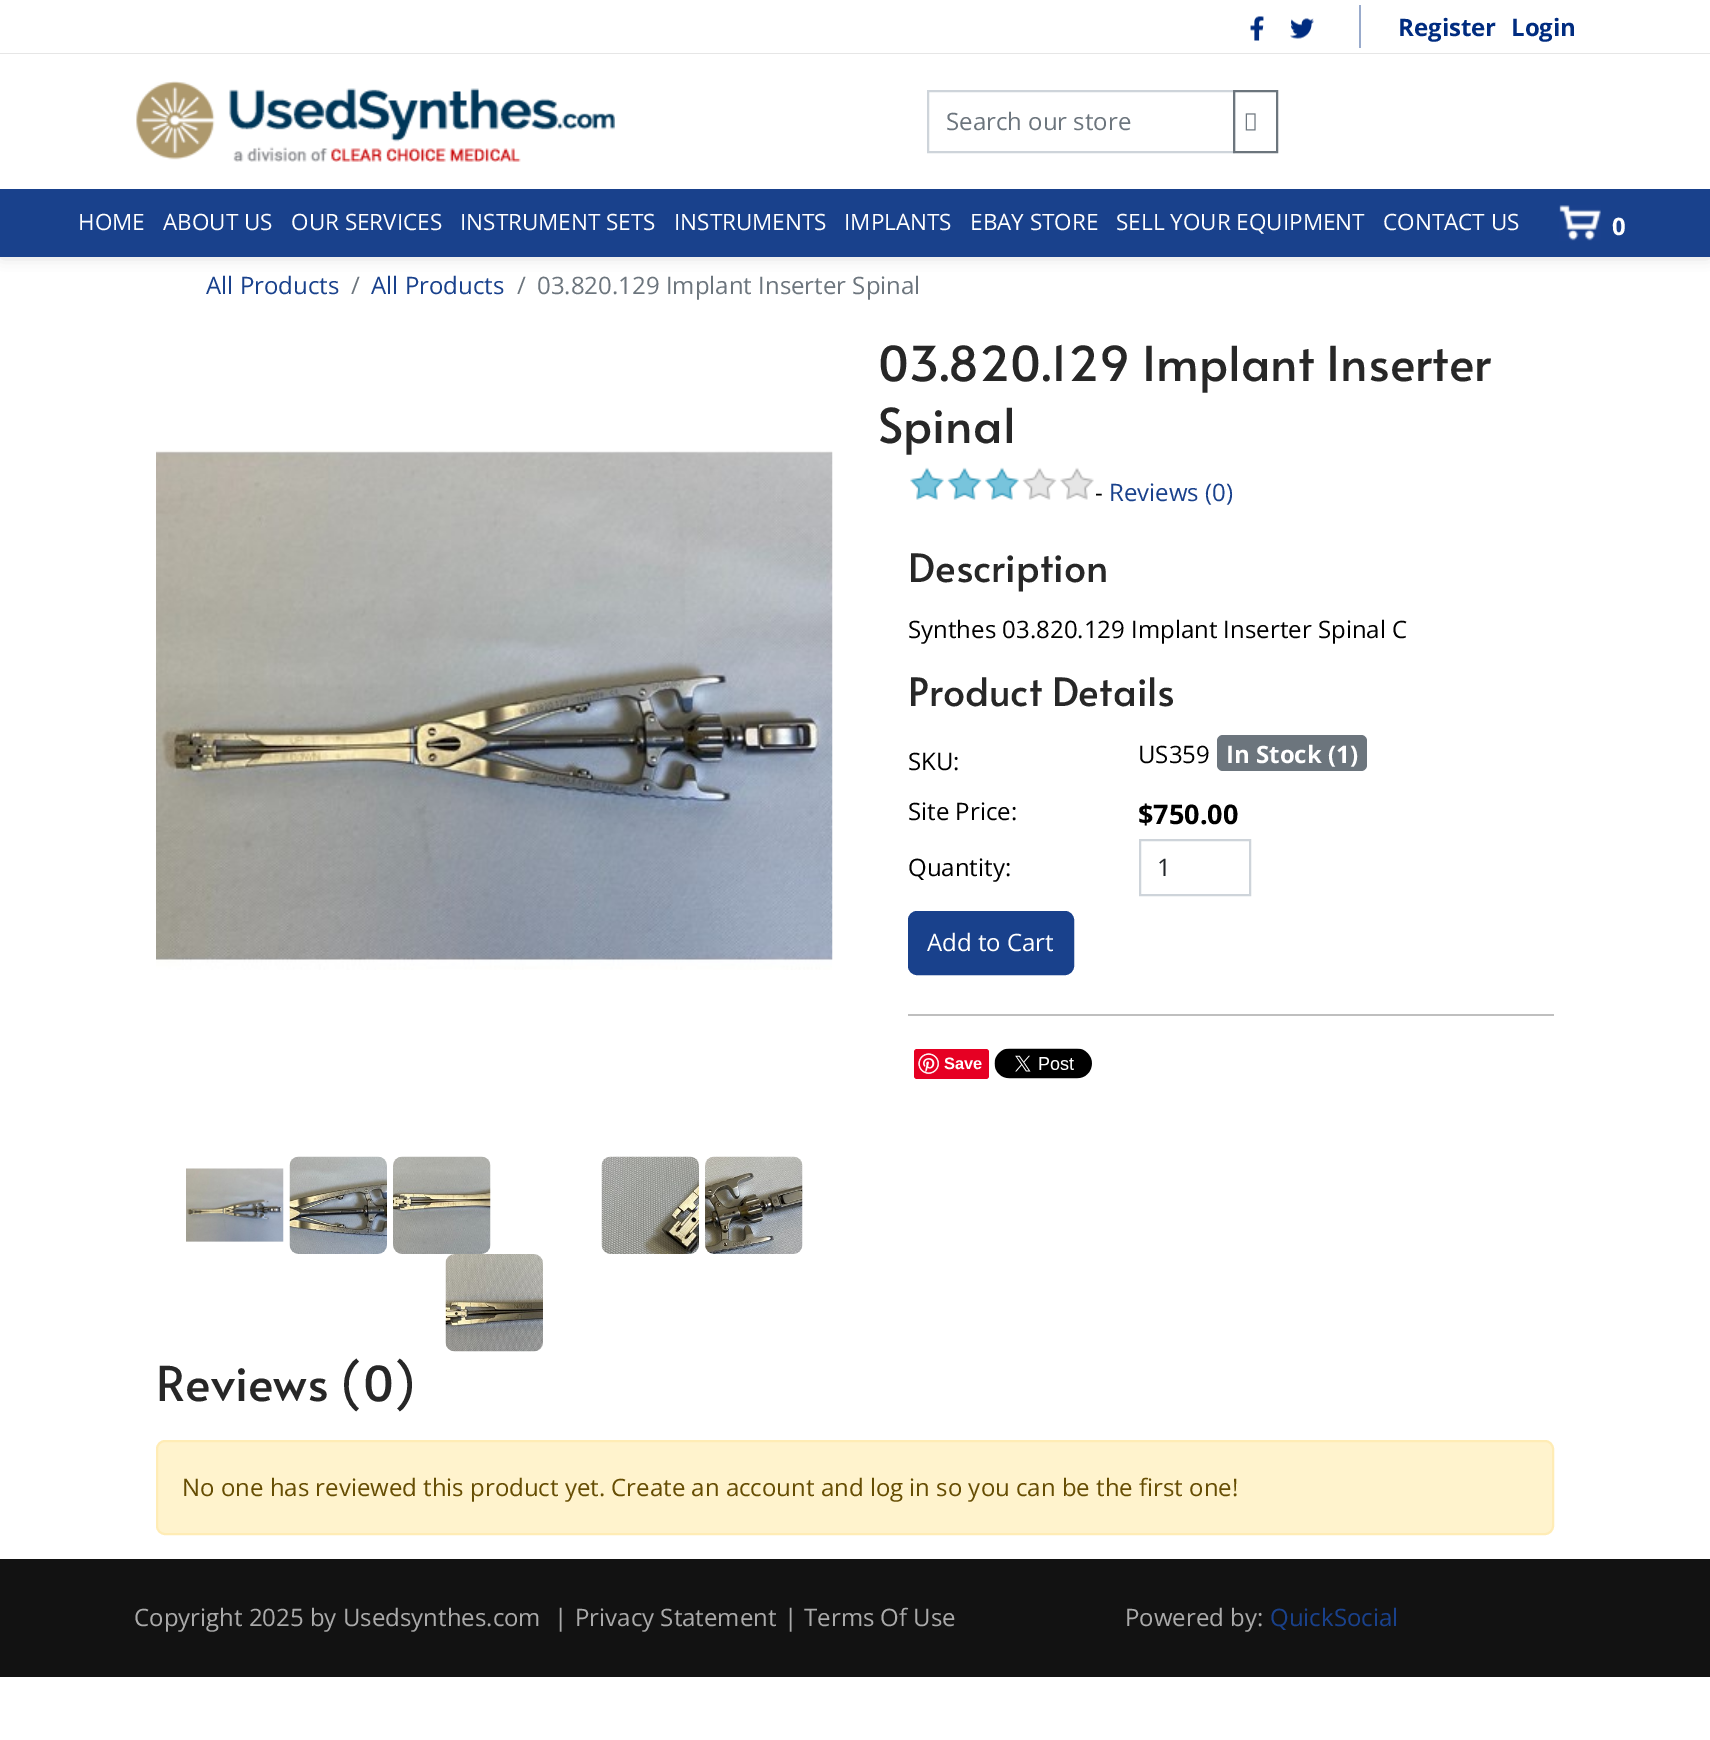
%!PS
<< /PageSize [1710 1740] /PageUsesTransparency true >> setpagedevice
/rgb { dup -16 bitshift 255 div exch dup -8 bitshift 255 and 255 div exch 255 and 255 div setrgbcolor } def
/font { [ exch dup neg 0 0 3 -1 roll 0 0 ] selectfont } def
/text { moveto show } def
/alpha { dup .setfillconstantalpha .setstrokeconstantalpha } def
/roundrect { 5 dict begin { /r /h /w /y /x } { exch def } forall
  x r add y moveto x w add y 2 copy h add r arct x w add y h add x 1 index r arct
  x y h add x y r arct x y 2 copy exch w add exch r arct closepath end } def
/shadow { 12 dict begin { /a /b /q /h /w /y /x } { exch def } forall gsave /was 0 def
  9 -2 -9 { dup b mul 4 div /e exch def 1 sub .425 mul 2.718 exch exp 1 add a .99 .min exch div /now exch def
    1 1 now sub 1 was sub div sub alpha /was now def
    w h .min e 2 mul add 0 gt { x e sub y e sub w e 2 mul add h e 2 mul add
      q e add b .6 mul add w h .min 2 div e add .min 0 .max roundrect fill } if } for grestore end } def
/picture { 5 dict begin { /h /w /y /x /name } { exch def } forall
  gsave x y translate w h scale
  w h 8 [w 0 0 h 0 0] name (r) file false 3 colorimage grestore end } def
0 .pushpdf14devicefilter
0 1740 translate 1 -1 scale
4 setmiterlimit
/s1 { /OpenSans-Bold 24 font 16#002C80 rgb } def
/s2 { /OpenSans-Regular 24 font 16#6C757D rgb } def
/s3 { /OpenSans-Regular 22.5 font 16#FFFFFF rgb } def
/s4 { /OpenSans-Bold 24 font 16#FFFFFF rgb } def
/s5 { /OpenSans-Regular 24 font 16#19418C rgb } def
/s6 { /Alata-Regular 48 font 16#272727 rgb } def
/s7 { /OpenSans-Regular 24 font 16#000000 rgb } def
/s8 { /Alata-Regular 39 font 16#272727 rgb } def
/s9 { /OpenSans-Bold 27 font 16#000000 rgb } def
/s10 { /OpenSans-Regular 24 font 16#212529 rgb } def
/s11 { /OpenSans-Regular 24 font 16#FFFFFF rgb } def
/s12 { /LiberationSans-Bold 16.5 font 16#FFFFFF rgb } def
/s13 { /OpenSans-Regular 24 font 16#664D03 rgb } def
/s14 { /OpenSans-Regular 24 font 16#AAAAAA rgb } def
16#FFFFFF rgb
0 0 1710 1740 rectfill
16#E6E6E6 rgb
0 53 1710 1 rectfill
(pic1.raw) 1250 16 14 25 picture
(pic2.raw) 1290 18 24 21 picture
16#99ABCC rgb
1359 5 2 43 rectfill
s1
(Register) 1398 36 text
(Login) 1511 36 text
(pic3.raw) 136 81 479 81 picture
16#CED4DA rgb
2 setlinewidth
928 91 306 61 rectstroke
s2
(Search our store) 946 130 text
1234 91 43 61 rectstroke
(pic4.raw) 1245 113 11 18 picture
gsave
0 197 moveto 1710 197 lineto 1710 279 lineto 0 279 lineto closepath -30 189 moveto 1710 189 lineto 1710 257 lineto -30 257 lineto closepath eoclip newpath
16#000000 rgb
2 221 1707 34 0 7.5 0.2 shadow
grestore
0.9 alpha
16#002C80 rgb
0 189 1710 68 rectfill
1 alpha
s3
(HOME) 78 230 text
(ABOUT US) 163 230 text
(OUR SERVICES) 291 230 text
(INSTRUMENT SETS) 460 230 text
(INSTRUMENTS) 674 230 text
(IMPLANTS) 844 230 text
(EBAY STORE) 970 230 text
(SELL YOUR EQUIPMENT) 1116 230 text
(CONTACT US) 1383 230 text
(pic5.raw) 1559 205 42 36 picture
s4
(0) 1612 235 text
s5
(All Products) 206 294 text
s2
(/) 351 294 text
s5
(All Products) 371 294 text
s2
(/) 517 294 text
(03.820.129 Implant Inserter Spinal) 537 294 text
(pic6.raw) 156 450 677 520 picture
(pic7.raw) 186 1168 98 74 picture
(pic8.raw) 289 1156 98 98 picture
(pic9.raw) 393 1156 98 98 picture
(pic10.raw) 601 1156 98 98 picture
(pic11.raw) 705 1156 98 98 picture
(pic12.raw) 445 1254 98 98 picture
s6
(03.820.129 Implant Inserter) 878 381 text
(Spinal) 878 443 text
(pic13.raw) 910 467 184 33 picture
s7
(-) 1095 501 text
s5
(Reviews \(0\)) 1109 501 text
s8
(Description) 908 582 text
s7
(Synthes 03.820.129 Implant Inserter Spinal C) 908 638 text
s8
(Product Details) 908 706 text
s7
(SKU:) 908 770 text
(US359) 1138 763 text
16#6C757D rgb
1217 735 150 36 6 roundrect fill
s4
(In Stock \(1\)) 1226 763 text
s7
(Site Price:) 908 820 text
s9
($750.00) 1138 824 text
s7
(Quantity:) 908 876 text
16#CED4DA rgb
1140 840 110 55 rectstroke
s10
(1) 1157 876 text
16#19418C rgb
909 912 164 62 8 roundrect gsave fill grestore
stroke
s11
(Add to Cart) 927 951 text
16#BFBFBF rgb
908 1014 646 2 rectfill
16#E60023 rgb
914 1049 75 30 3 roundrect fill
(pic14.raw) 918 1053 21 21 picture
s12
(Save) 944 1069 text
(pic15.raw) 994 1048 98 31 picture
s6
(Reviews \(0\)) 156 1401 text
16#FFF3CD rgb
157 1441 1396 93 8 roundrect gsave fill grestore
16#FFECB5 rgb
stroke
s13
(No one has reviewed this product yet. Create an account and log in so you can be the first one!) 182 1496 text
16#121212 rgb
0 1559 1710 118 rectfill
s14
(Copyright 2025 by Usedsynthes.com) 134 1626 text
(|) 554 1626 text
(Privacy Statement) 575 1626 text
(|) 784 1626 text
(Terms Of Use) 804 1626 text
(Powered by:) 1125 1626 text
s5
(QuickSocial) 1270 1626 text
.poppdf14devicefilter showpage
